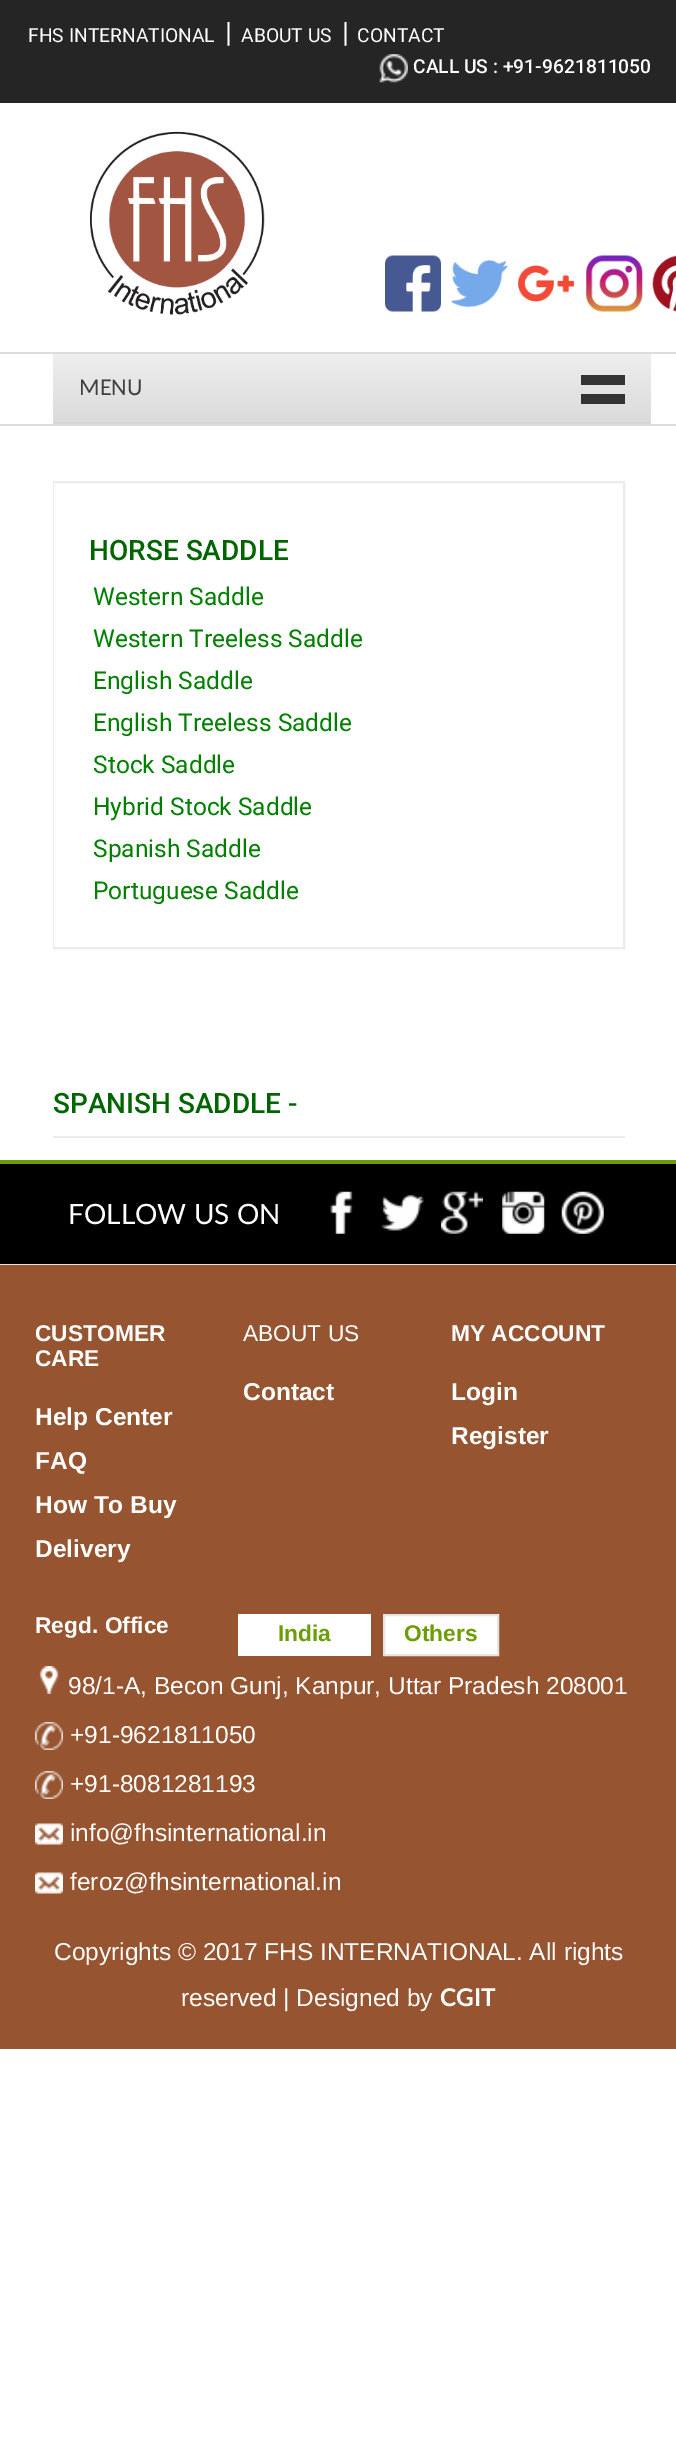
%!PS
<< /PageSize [676 2459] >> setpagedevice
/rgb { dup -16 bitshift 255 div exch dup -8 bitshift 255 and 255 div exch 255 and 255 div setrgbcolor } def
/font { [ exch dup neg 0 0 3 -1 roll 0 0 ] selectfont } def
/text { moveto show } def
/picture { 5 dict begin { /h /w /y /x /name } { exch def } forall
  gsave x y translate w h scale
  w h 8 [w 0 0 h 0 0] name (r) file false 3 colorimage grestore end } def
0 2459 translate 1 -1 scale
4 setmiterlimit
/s1 { /Roboto-Regular 19.25 font 16#FFFFFF rgb } def
/s2 { /Roboto-Regular 28 font 16#FFFFFF rgb } def
/s3 { /Roboto-Medium 19.25 font 16#FFFFFF rgb } def
/s4 { /Carlito-Regular 24 font 16#3F3D3D rgb } def
/s5 { /Roboto-Medium 28 font 16#006400 rgb } def
/s6 { /Roboto-Regular 24.5 font 16#008000 rgb } def
/s7 { /Lato-Regular 28 font 16#FFFFFF rgb } def
/s8 { /LiberationSans-Bold 22.75 font 16#FFFFFF rgb } def
/s9 { /LiberationSans-Bold 24.5 font 16#FFFFFF rgb } def
/s10 { /LiberationSans-Regular 22.75 font 16#FFFFFF rgb } def
/s11 { /LiberationSans-Bold 22.75 font 16#6C9D06 rgb } def
/s12 { /LiberationSans-Regular 24.5 font 16#FFFFFF rgb } def
/s13 { /Lato-Bold 24.5 font 16#FFFFFF rgb } def
16#FFFFFF rgb
0 0 676 2459 rectfill
16#252525 rgb
0 0 676 103 rectfill
s1
(FHS INTERNATIONAL) 28 42 text
s2
(|) 225 42 text
s1
(ABOUT US) 241 42 text
s2
(|) 342 42 text
s1
(CONTACT) 357 42 text
(pic1.raw) 379 54 29 29 picture
s3
(CALL US : +91-9621811050) 413 73 text
16#DDDDDD rgb
0 424 676 2 rectfill
0 352 676 2 rectfill
(pic2.raw) 90 131 175 184 picture
(pic3.raw) 385 255 56 57 picture
(pic4.raw) 451 259 57 49 picture
(pic5.raw) 518 265 56 37 picture
(pic6.raw) 586 255 57 57 picture
(pic7.raw) 652 255 24 57 picture
gsave 53 354 moveto 651 354 lineto 651 422 lineto 53 422 lineto closepath clip newpath
<< /ShadingType 2 /ColorSpace /DeviceRGB /Coords [352 353 352 422] /Extend [true true] /Function << /FunctionType 2 /Domain [0 1] /C0 [0.933 0.933 0.933] /C1 [0.859 0.859 0.859] /N 1 >> >> shfill grestore
16#D6D6D6 rgb
53 422 598 2 rectfill
s4
(MENU) 79 395 text
16#333333 rgb
581 375 44 10 rectfill
581 394 44 10 rectfill
16#EBEBEB rgb
2 setlinewidth
54 482 570 466 rectstroke
16#FFFFFF rgb
54 483 1 464 rectfill
s5
(HORSE SADDLE) 89 560 text
s6
(Western Saddle) 93 605 text
(Western Treeless Saddle) 93 647 text
(English Saddle) 93 689 text
(English Treeless Saddle) 93 731 text
(Stock Saddle) 93 773 text
(Hybrid Stock Saddle) 93 815 text
(Spanish Saddle) 93 857 text
(Portuguese Saddle) 93 899 text
16#EBEBEB rgb
53 1136 572 2 rectfill
s5
(SPANISH SADDLE -) 53 1113 text
16#000000 rgb
0 1164 676 100 rectfill
16#6C9D06 rgb
0 1160 676 4 rectfill
16#E5E4E2 rgb
0 1264 676 1 rectfill
s7
(FOLLOW US ON) 68 1224 text
(pic8.raw) 330 1191 23 43 picture
(pic9.raw) 381 1194 43 37 picture
(pic10.raw) 441 1191 42 43 picture
(pic11.raw) 502 1191 43 43 picture
(pic12.raw) 561 1191 43 43 picture
16#965430 rgb
0 1265 676 784 rectfill
s8
(CUSTOMER) 35 1341 text
(CARE) 35 1366 text
s9
(Help Center) 35 1425 text
(FAQ) 35 1469 text
(How To Buy) 35 1513 text
(Delivery) 35 1557 text
s10
(ABOUT US) 243 1341 text
s9
(Contact) 243 1400 text
s8
(MY ACCOUNT) 451 1341 text
s9
(Login) 451 1400 text
(Register) 451 1444 text
s8
(Regd. Office) 35 1633 text
238 1614 133 42 rectfill
s11
(India) 278 1641 text
16#FFFFFF rgb
384 1615 moveto 498 1615 lineto 498 1655 lineto 384 1655 lineto closepath gsave fill grestore
16#E5E4E2 rgb
stroke
s11
(Others) 404 1641 text
(pic13.raw) 39 1666 20 28 picture
s12
(98/1-A, Becon Gunj, Kanpur, Uttar Pradesh 208001) 68 1694 text
(pic14.raw) 35 1722 28 28 picture
(+91-9621811050) 70 1743 text
(pic14.raw) 35 1771 28 28 picture
(+91-8081281193) 70 1792 text
(pic15.raw) 35 1823 28 22 picture
(info@fhsinternational.in) 70 1841 text
(pic16.raw) 35 1872 28 22 picture
(feroz@fhsinternational.in) 70 1890 text
(Copyrights © 2017 FHS INTERNATIONAL. All rights) 54 1960 text
(reserved | Designed by) 181 2006 text
s13
(CGIT) 440 2006 text
showpage
